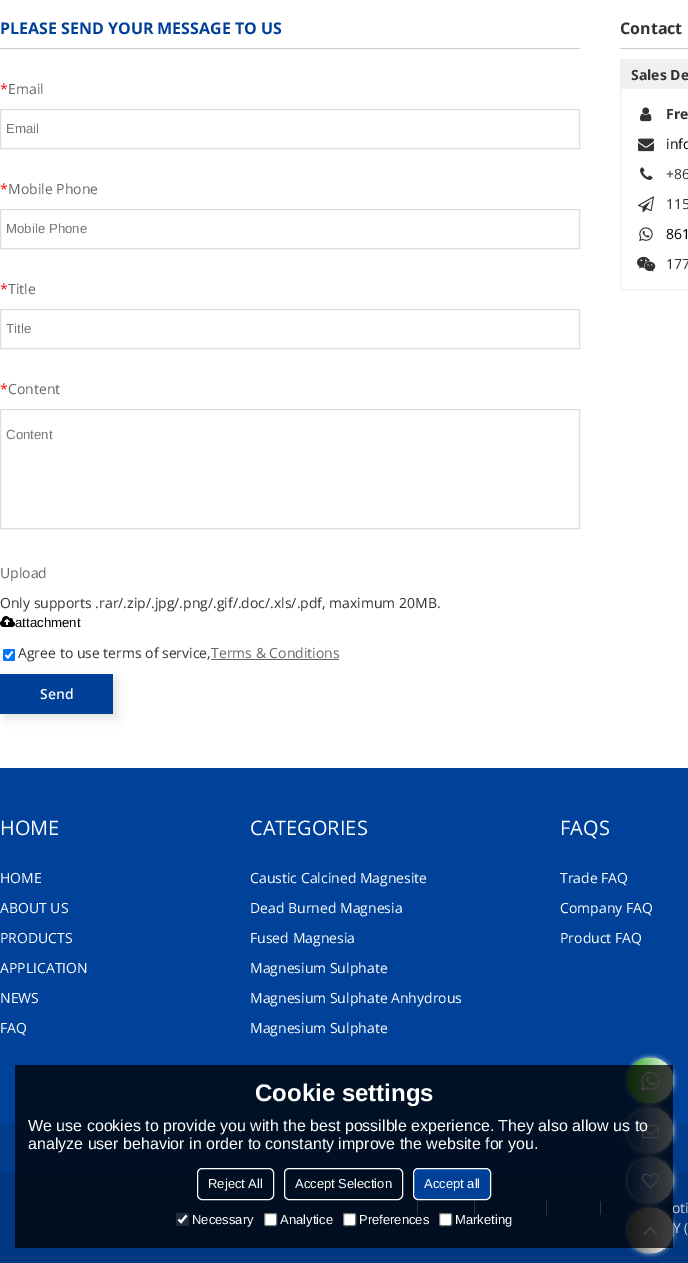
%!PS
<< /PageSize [688 1263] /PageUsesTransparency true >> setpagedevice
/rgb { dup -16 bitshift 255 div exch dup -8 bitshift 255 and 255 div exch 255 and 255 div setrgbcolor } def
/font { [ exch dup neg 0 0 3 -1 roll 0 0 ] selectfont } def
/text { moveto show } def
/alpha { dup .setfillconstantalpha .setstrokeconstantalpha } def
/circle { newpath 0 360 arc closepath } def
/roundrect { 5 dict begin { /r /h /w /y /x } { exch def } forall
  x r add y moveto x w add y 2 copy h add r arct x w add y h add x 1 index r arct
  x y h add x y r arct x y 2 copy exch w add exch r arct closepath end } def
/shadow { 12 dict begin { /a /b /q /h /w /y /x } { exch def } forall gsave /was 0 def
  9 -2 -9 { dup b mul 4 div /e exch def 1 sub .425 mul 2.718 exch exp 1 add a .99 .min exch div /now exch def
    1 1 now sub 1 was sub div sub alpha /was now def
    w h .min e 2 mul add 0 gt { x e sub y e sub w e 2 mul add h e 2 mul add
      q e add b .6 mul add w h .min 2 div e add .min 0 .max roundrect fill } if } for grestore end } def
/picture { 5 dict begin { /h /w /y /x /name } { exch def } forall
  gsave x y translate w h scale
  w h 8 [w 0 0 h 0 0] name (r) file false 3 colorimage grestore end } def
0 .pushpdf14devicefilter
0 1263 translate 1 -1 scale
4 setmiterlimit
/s1 { /OpenSans-Bold 16 font 16#004098 rgb } def
/s2 { /OpenSans-Regular 14 font 16#FF0000 rgb } def
/s3 { /OpenSans-Regular 14 font 16#666666 rgb } def
/s4 { /LiberationSans-Regular 13.25 font 16#757575 rgb } def
/s5 { /OpenSans-Regular 14 font 16#333333 rgb } def
/s6 { /LiberationSans-Regular 13.25 font 16#000000 rgb } def
/s7 { /OpenSans-SemiBold 14 font 16#FFFFFF rgb } def
/s8 { /OpenSans-Bold 16 font 16#333333 rgb } def
/s9 { /OpenSans-Bold 14 font 16#333333 rgb } def
/s10 { /OpenSans-Regular 14 font 16#000000 rgb } def
/s11 { /OpenSans-Regular 20 font 16#FFFFFF rgb } def
/s12 { /OpenSans-Regular 14 font 16#FFFFFF rgb } def
/s13 { /OpenSans-Regular 14 font 16#CCCCCC rgb } def
/s14 { /LiberationSans-Bold 24 font 16#FFFFFF rgb } def
/s15 { /LiberationSans-Regular 16 font 16#FFFFFF rgb } def
/s16 { /LiberationSans-Regular 13 font 16#FFFFFF rgb } def
16#FFFFFF rgb
0 0 688 1263 rectfill
16#CCCCCC rgb
0 48 580 1 rectfill
s1
(PLEASE SEND YOUR MESSAGE TO US) 0 34 text
s2
(*) 0 94 text
s3
(Email) 8 94 text
16#DDDDDD rgb
0.5 109.5 579 39 rectstroke
s4
(Email) 6 133 text
s2
(*) 0 194 text
s3
(Mobile Phone) 8 194 text
16#DDDDDD rgb
0.5 209.5 579 39 rectstroke
s4
(Mobile Phone) 6 233 text
s2
(*) 0 294 text
s3
(Title) 8 294 text
16#DDDDDD rgb
0.5 309.5 579 39 rectstroke
s4
(Title) 6 333 text
s2
(*) 0 394 text
s3
(Content) 8 394 text
16#DDDDDD rgb
0.5 409.5 579 119 rectstroke
s4
(Content) 6 439 text
s3
(Upload) 0 578 text
s5
(Only supports .rar/.zip/.jpg/.png/.gif/.doc/.xls/.pdf, maximum 20MB.) 0 608 text
(pic1.raw) 0 616 15 11 picture
s6
(attachment) 15 627 text
16#0075FF rgb
3 649 12 12 2 roundrect fill
16#FFFFFF rgb
1.9 setlinewidth
5.5 655 moveto 8 657.5 lineto 12.5 651.5 lineto stroke
s5
(Agree to use terms of service,) 18 658 text
s3
(Terms & Conditions) 211 658 text
211 659 128 1 rectfill
16#000000 rgb
5 679 113 40 0 5 0.1 shadow
16#004098 rgb
0 674 113 40 rectfill
s7
(Send) 40 699 text
16#CCCCCC rgb
620 48 68 1 rectfill
s8
(Contact) 620 34 text
16#F0F0F0 rgb
1 setlinewidth
620.5 59.5 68 230 rectstroke
621 60 67 29 rectfill
s9
(Sales De) 631 80 text
(pic2.raw) 640 107 12 15 picture
(Fre) 666 119 text
(pic3.raw) 638 138 16 14 picture
s10
(info) 666 149 text
(pic4.raw) 640 167 13 13 picture
s5
(+86) 666 179 text
(pic5.raw) 638 196 16 17 picture
(115) 666 209 text
(pic6.raw) 639 227 14 15 picture
s10
(861) 666 239 text
(pic7.raw) 637 256 19 16 picture
s5
(177) 666 269 text
16#004299 rgb
0 768 688 355 rectfill
s11
(HOME) 0 835 text
s12
(HOME) 0 883 text
(ABOUT US) 0 913 text
(PRODUCTS) 0 943 text
(APPLICATION) 0 973 text
(NEWS) 0 1003 text
(FAQ) 0 1033 text
s11
(CATEGORIES) 250 835 text
s12
(Caustic Calcined Magnesite) 250 883 text
(Dead Burned Magnesia) 250 913 text
(Fused Magnesia) 250 943 text
(Magnesium Sulphate) 250 973 text
(Magnesium Sulphate Anhydrous) 250 1003 text
(Magnesium Sulphate) 250 1033 text
s11
(FAQS) 560 835 text
s12
(Trade FAQ) 560 883 text
(Company FAQ) 560 913 text
(Product FAQ) 560 943 text
16#003D8C rgb
0 1123 688 50 rectfill
16#003780 rgb
0 1173 688 90 rectfill
16#CCCCCC rgb
417 1201 1 14 rectfill
474 1201 1 14 rectfill
546 1201 1 14 rectfill
600 1201 1 14 rectfill
(oti) 672 1213 text
(Y \() 673 1233 text
16#EEEEEE rgb
628 1058 45 45 22.5 2.5 1 shadow
gsave 650.5 1080.5 22.5 circle clip newpath
<< /ShadingType 2 /ColorSpace /DeviceRGB /Coords [628 1081 673 1081] /Extend [true true] /Function << /FunctionType 2 /Domain [0 1] /C0 [0.161 0.651 0.102] /C1 [1 1 1] /N 1 >> >> shfill grestore
(pic8.raw) 641 1071 19 20 picture
628 1108 45 45 22.5 2.5 1 shadow
gsave 650.5 1130.5 22.5 circle clip newpath
<< /ShadingType 2 /ColorSpace /DeviceRGB /Coords [628 1131 673 1131] /Extend [true true] /Function << /FunctionType 2 /Domain [0 1] /C0 [0 0.251 0.596] /C1 [1 1 1] /N 1 >> >> shfill grestore
(pic9.raw) 642 1124 17 15 picture
628 1158 45 45 22.5 2.5 1 shadow
gsave 650.5 1180.5 22.5 circle clip newpath
<< /ShadingType 2 /ColorSpace /DeviceRGB /Coords [628 1181 673 1181] /Extend [true true] /Function << /FunctionType 2 /Domain [0 1] /C0 [0 0.251 0.596] /C1 [1 1 1] /N 1 >> >> shfill grestore
(pic10.raw) 642 1173 17 16 picture
628 1208 45 45 22.5 2.5 1 shadow
gsave 650.5 1230.5 22.5 circle clip newpath
<< /ShadingType 2 /ColorSpace /DeviceRGB /Coords [628 1231 673 1231] /Extend [true true] /Function << /FunctionType 2 /Domain [0 1] /C0 [0.4 0.4 0.4] /C1 [1 1 1] /N 1 >> >> shfill grestore
(pic11.raw) 643 1226 15 9 picture
0.75 alpha
16#000000 rgb
15 1065 658 183 rectfill
1 alpha
s14
(Cookie settings) 255 1101 text
s15
(We use cookies to provide you with the best possilble experience. They also allow us to) 28 1131 text
(analyze user behavior in order to constanty improve the website for you.) 28 1149 text
197.5 1168.5 76 31 4.5 roundrect stroke
s16
(Reject All) 208 1188 text
284.5 1168.5 118 31 4.5 roundrect stroke
(Accept Selection) 295 1188 text
16#004098 rgb
413.5 1168.5 77 31 4.5 roundrect gsave fill grestore
16#FFFFFF rgb
stroke
(Accept all) 424 1188 text
16#232D3A rgb
176 1213 13 13 2 roundrect fill
16#FFFFFF rgb
2.1 setlinewidth
178.5 1219.5 moveto 181 1222 lineto 186.5 1215.5 lineto stroke
(Necessary) 192 1224 text
264.5 1213.5 12 12 1.5 roundrect gsave fill grestore
16#767676 rgb
1 setlinewidth
stroke
s16
(Analytice) 280 1224 text
343.5 1213.5 12 12 1.5 roundrect gsave fill grestore
16#767676 rgb
stroke
s16
(Preferences) 359 1224 text
439.5 1213.5 12 12 1.5 roundrect gsave fill grestore
16#767676 rgb
stroke
s16
(Marketing) 455 1224 text
.poppdf14devicefilter showpage
